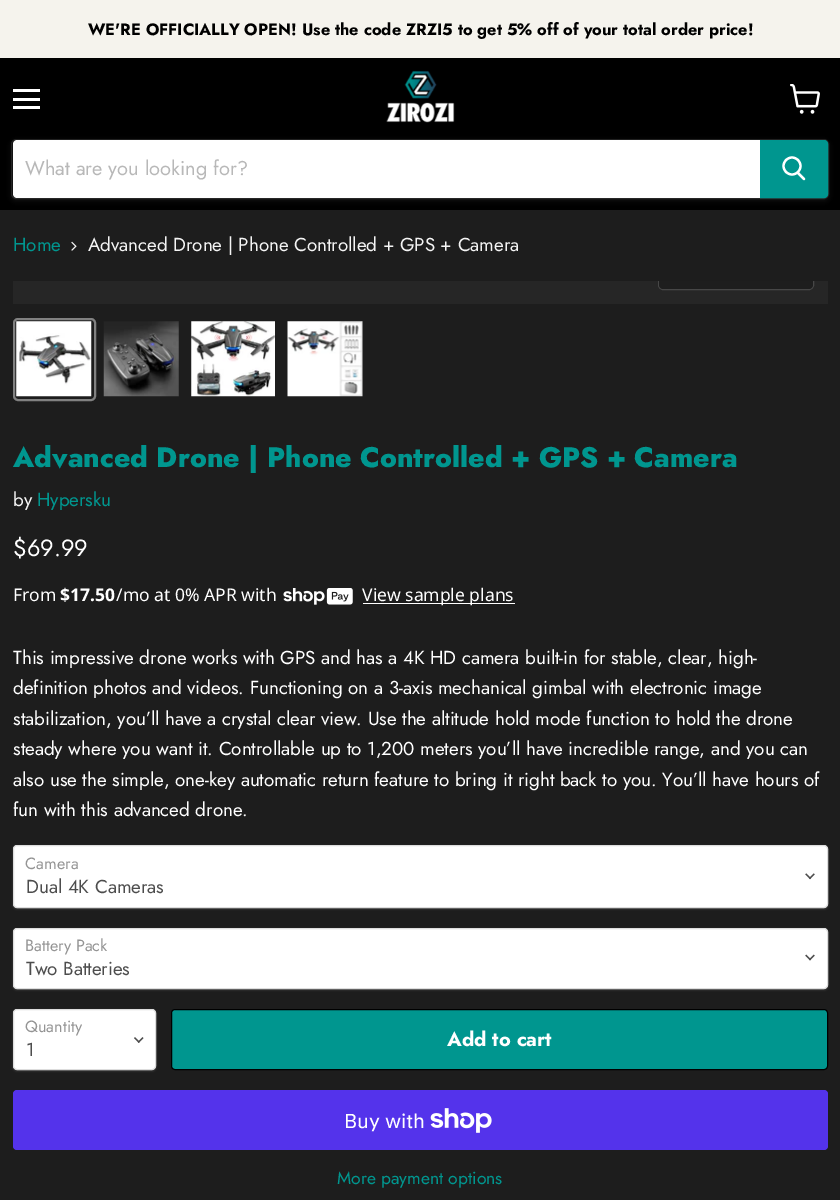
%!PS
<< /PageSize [840 1200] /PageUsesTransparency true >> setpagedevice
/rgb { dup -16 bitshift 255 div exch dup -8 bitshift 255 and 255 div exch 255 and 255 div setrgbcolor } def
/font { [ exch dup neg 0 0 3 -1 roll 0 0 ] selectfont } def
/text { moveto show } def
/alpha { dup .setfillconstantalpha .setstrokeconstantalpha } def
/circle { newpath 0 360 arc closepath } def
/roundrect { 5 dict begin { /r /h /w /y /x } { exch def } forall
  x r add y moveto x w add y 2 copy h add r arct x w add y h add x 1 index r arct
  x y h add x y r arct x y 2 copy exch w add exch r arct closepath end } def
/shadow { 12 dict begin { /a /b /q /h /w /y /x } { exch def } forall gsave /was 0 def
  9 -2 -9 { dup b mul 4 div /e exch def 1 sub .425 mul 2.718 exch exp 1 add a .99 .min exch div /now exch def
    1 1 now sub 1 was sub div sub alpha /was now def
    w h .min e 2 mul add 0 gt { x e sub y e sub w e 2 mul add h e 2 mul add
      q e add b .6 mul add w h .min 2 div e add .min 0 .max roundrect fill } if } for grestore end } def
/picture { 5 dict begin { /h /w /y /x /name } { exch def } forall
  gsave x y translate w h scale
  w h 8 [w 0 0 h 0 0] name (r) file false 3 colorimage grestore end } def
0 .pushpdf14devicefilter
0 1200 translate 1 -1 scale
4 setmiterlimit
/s1 { /Jost-Bold 16.4 font 16#000000 rgb } def
/s2 { /Jost-Regular 20 font 16#B8B8B8 rgb } def
/s3 { /Jost-Regular 18.75 font 16#00968F rgb } def
/s4 { /Jost-Regular 18.75 font 16#F4F4F4 rgb } def
/s5 { /Jost-ExtraBold 28.1 font 16#00968F rgb } def
/s6 { /Jost-Regular 23.5 font 16#FFFFFF rgb } def
/s7 { /NotoSans-Regular 17.5 font 16#FFFFFF rgb } def
/s8 { /NotoSans-Bold 17.5 font 16#FFFFFF rgb } def
/s9 { /Jost-Regular 18.75 font 16#FFFFFF rgb } def
/s10 { /Jost-Regular 16.25 font 16#949494 rgb } def
/s11 { /Jost-Regular 18.75 font 16#4D4D4D rgb } def
/s12 { /Jost-Bold 20 font 16#FFFFFF rgb } def
/s13 { /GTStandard-Regular 20 font 16#FFFFFF rgb } def
/s14 { /Jost-Regular 17.5 font 16#00968F rgb } def
16#1D1D1D rgb
0 0 840 1200 rectfill
16#F5F3ED rgb
0 0 840 58 rectfill
s1
(WE'RE OFFICIALLY OPEN! Use the code ZRZI5 to get 5% off of your total order price!) 88 35 text
0 58 840 152 rectfill
16#FFFFFF rgb
13 89 27 3 rectfill
13 98 27 3 rectfill
13 106 27 3 rectfill
(pic1.raw) 790 84 30 30 picture
(pic2.raw) 386 70 69 53 picture
16#8E8E8E rgb
11 141 818 60 5 2 0.11 shadow
0.2 alpha
11.5 139.5 817 59 4.5 roundrect stroke
1 alpha
16#FFFFFF rgb
17 140 moveto 760 140 lineto 760 198 lineto 17 198 lineto 15 198 13 196 13 194 curveto 13 144 lineto 13 142 15 140 17 140 curveto closepath fill
s2
(What are you looking for?) 25 175 text
16#00968F rgb
760.5 140.5 moveto 824 140.5 lineto 826 140.5 827.5 142 827.5 144 curveto 827.5 194 lineto 827.5 196 826 197.5 824 197.5 curveto 760.5 197.5 lineto closepath gsave fill grestore
stroke
16#FFFFFF rgb
2.2 setlinewidth
1 setlinecap
804 179 moveto 798 173 lineto stroke
0 setlinecap
792 166 8.5 circle stroke
s3
(Home) 13 251 text
(pic3.raw) 71 241 6 10 picture
s4
(Advanced Drone | Phone Controlled + GPS + Camera) 88 251 text
16#262626 rgb
13 281 815 23 rectfill
gsave
13 281 815 23 rectclip
16#474747 rgb
1 setlinewidth
658.5 253.5 155 36 4.5 roundrect stroke
grestore
0.9 alpha
16#1D1D1D rgb
659 281 moveto 813 281 lineto 813 285 lineto 813 287 811 289 809 289 curveto 663 289 lineto 661 289 659 287 659 285 curveto closepath fill
1 alpha
16#818181 rgb
2 setlinewidth
14 319 81 81 4 roundrect stroke
(pic4.raw) 16 321 76 76 picture
(pic5.raw) 103 321 76 76 picture
(pic6.raw) 191 321 84 76 picture
(pic7.raw) 287 321 76 76 picture
s5
(Advanced Drone | Phone Controlled + GPS + Camera) 13 467 text
s4
(by) 13 506 text
s3
(Hypersku) 37 506 text
s6
($69.99) 13 556 text
s7
(From) 13 601 text
s8
($17.50) 60 601 text
s7
(/mo at 0% APR with) 116 601 text
(pic8.raw) 283 588 70 17 picture
363 603 152 1 rectfill
(View sample plans) 362 601 text
s9
(This impressive drone works with GPS and has a 4K HD camera built-in for stable, clear, high-) 13 664 text
(definition photos and videos. Functioning on a 3-axis mechanical gimbal with electronic image) 13 694 text
(stabilization, you’ll have a crystal clear view. Use the altitude hold mode function to hold the drone) 13 725 text
(steady where you want it. Controllable up to 1,200 meters you’ll have incredible range, and you can) 13 755 text
(also use the simple, one-key automatic return feature to bring it right back to you. You’ll have hours of) 13 786 text
(fun with this advanced drone.) 13 816 text
13 846 815 63 4 1 0.15 shadow
13.5 845.5 814 62 3.5 roundrect gsave fill grestore
16#DDDDDD rgb
1 setlinewidth
stroke
s10
(Camera) 25 869 text
(pic9.raw) 805 873 10 7 picture
s11
(Dual 4K Cameras) 26 893 text
16#FFFFFF rgb
13 929 815 61 4 1 0.15 shadow
13.5 928.5 814 60 3.5 roundrect gsave fill grestore
16#DDDDDD rgb
stroke
s10
(Battery Pack) 25 951 text
(pic10.raw) 805 954 10 7 picture
s11
(Two Batteries) 26 975 text
16#FFFFFF rgb
13 1010 143 61 4 1 0.15 shadow
13.5 1009.5 142 60 3.5 roundrect gsave fill grestore
16#DDDDDD rgb
stroke
s10
(Quantity) 25 1032 text
(pic11.raw) 134 1037 10 6 picture
s11
(1) 26 1056 text
16#00968F rgb
171.5 1009.5 656 60 3.5 roundrect gsave fill grestore
16#000000 rgb
stroke
s12
(Add to cart) 447 1046 text
16#5433EB rgb
13 1090 815 60 4 roundrect fill
s13
(Buy with) 344 1128 text
(pic12.raw) 430 1108 62 25 picture
s14
(More payment options) 337 1184 text
.poppdf14devicefilter showpage
